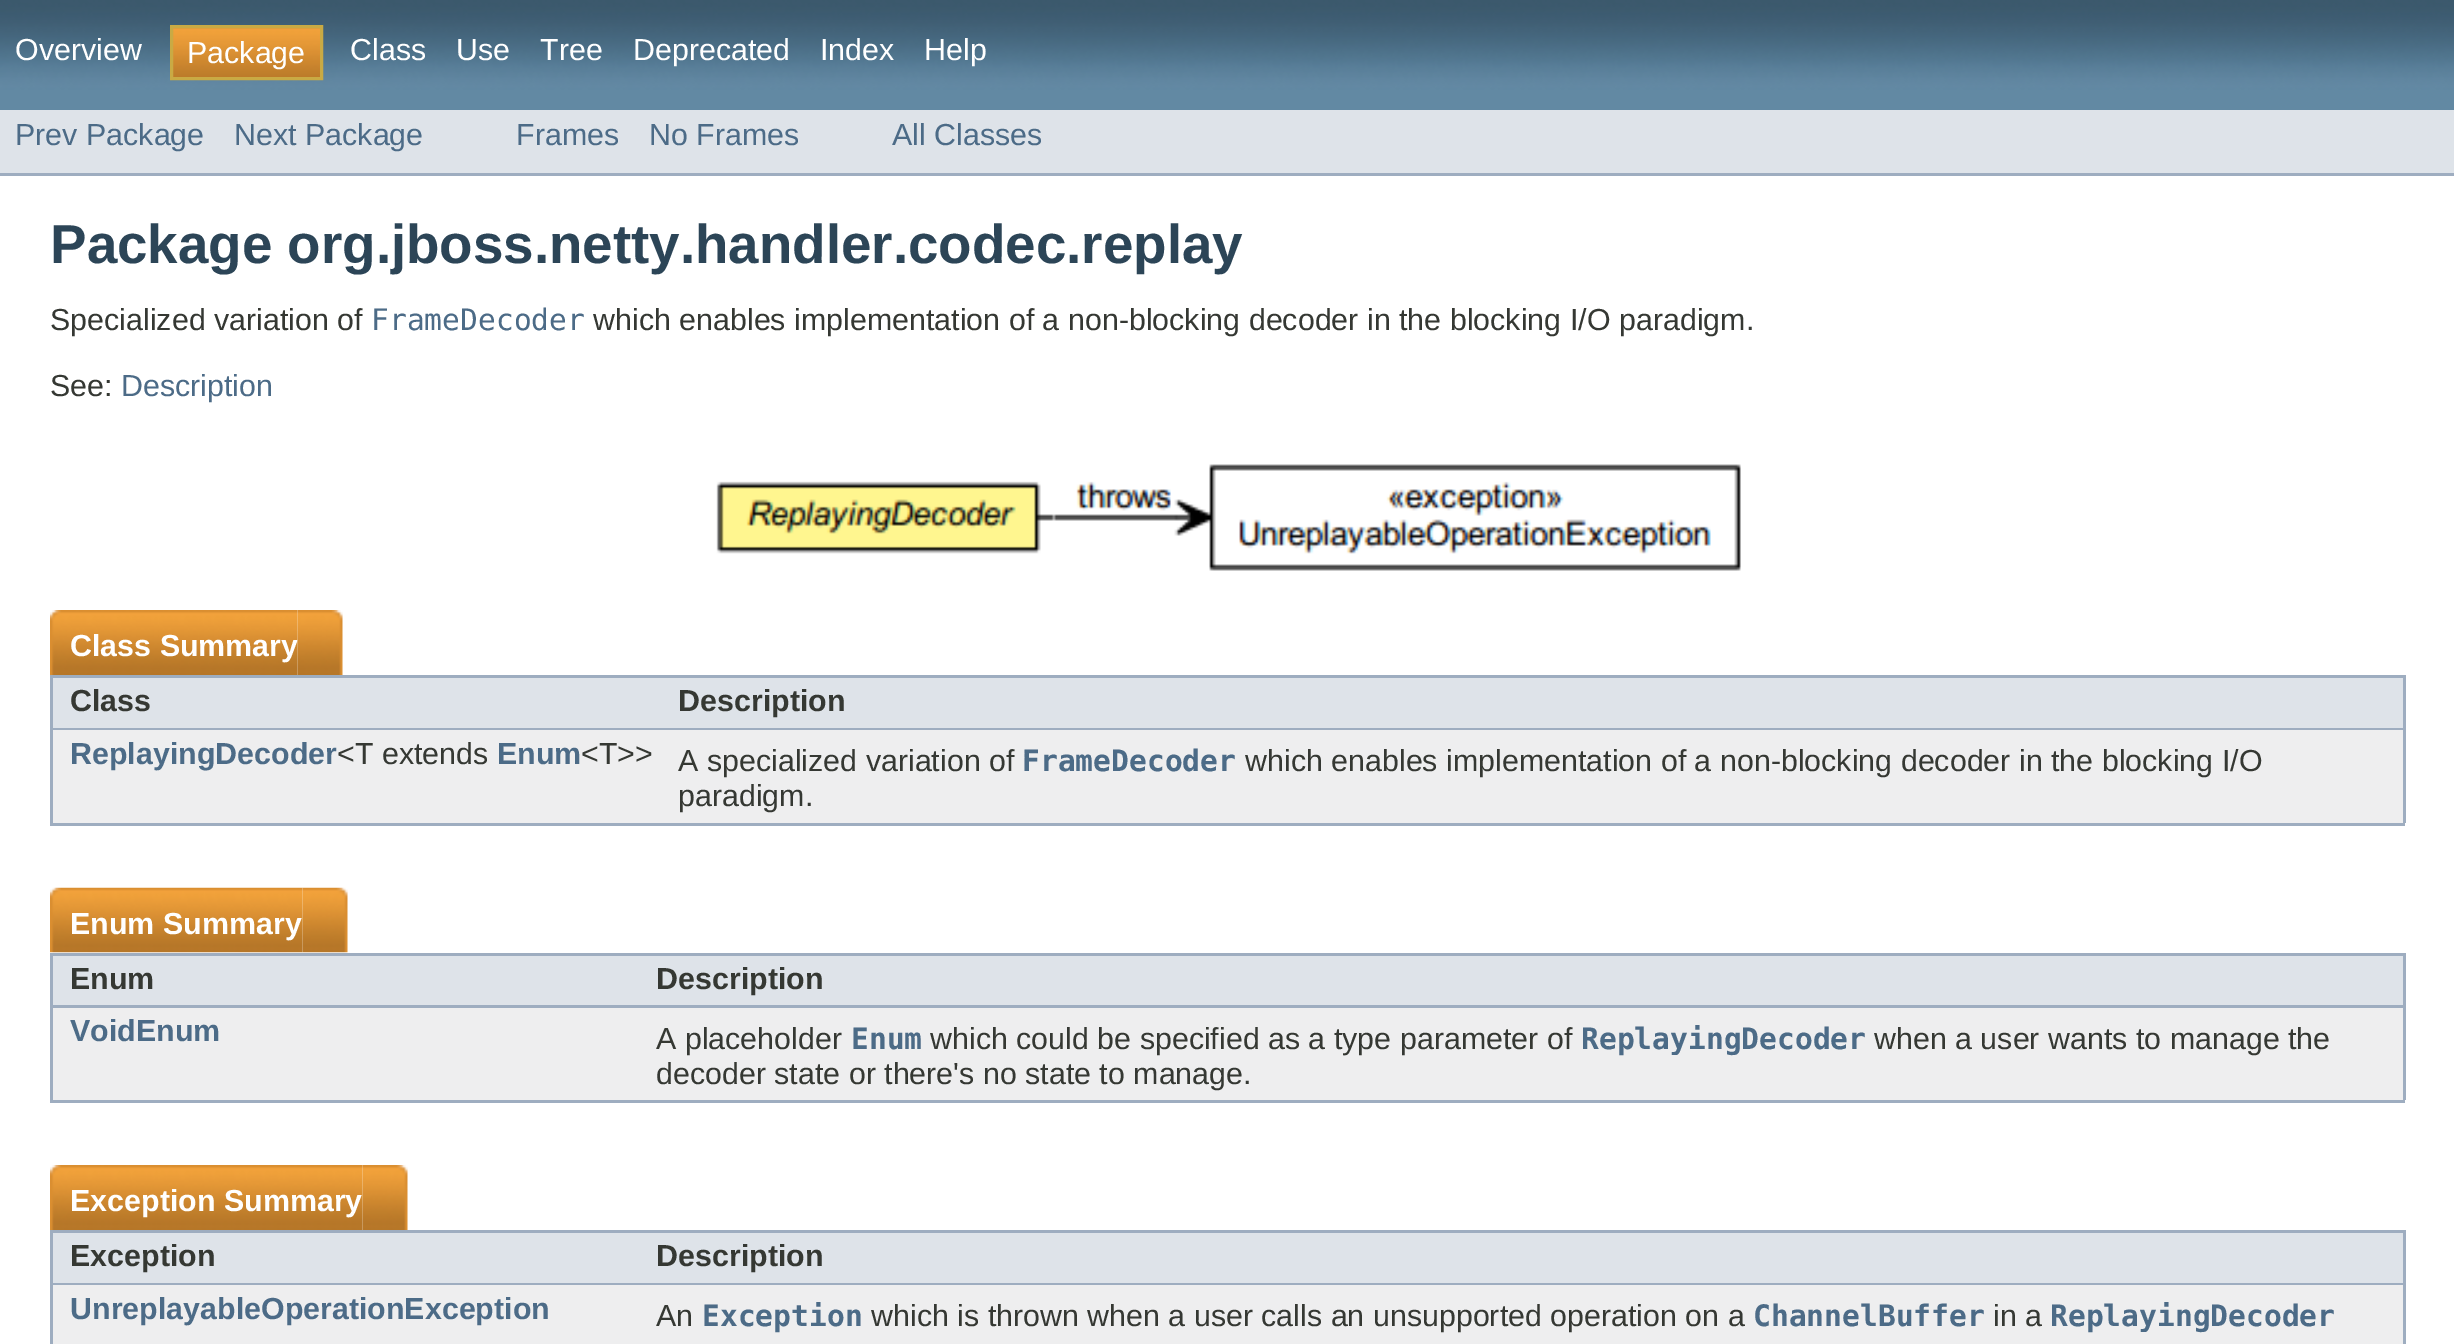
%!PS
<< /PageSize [2454 1344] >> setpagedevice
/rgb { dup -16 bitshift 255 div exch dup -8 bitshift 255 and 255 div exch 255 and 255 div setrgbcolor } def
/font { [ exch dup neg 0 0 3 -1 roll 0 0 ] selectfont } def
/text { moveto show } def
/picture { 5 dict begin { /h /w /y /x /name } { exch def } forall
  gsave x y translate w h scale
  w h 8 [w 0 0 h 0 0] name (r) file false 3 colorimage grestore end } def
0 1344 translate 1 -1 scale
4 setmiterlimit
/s1 { /LiberationSans-Regular 30.4 font 16#FFFFFF rgb } def
/s2 { /LiberationSans-Regular 30.4 font 16#4C6B87 rgb } def
/s3 { /LiberationSans-Bold 54.75 font 16#2C4557 rgb } def
/s4 { /LiberationSans-Regular 30.4 font 16#353833 rgb } def
/s5 { /DejaVuSansMono-Regular 29.6 font 16#4C6B87 rgb } def
/s6 { /LiberationSans-Bold 30.4 font 16#FFFFFF rgb } def
/s7 { /LiberationSans-Bold 30.4 font 16#353833 rgb } def
/s8 { /LiberationSans-Bold 30.4 font 16#4C6B87 rgb } def
/s9 { /DejaVuSansMono-Bold 29.6 font 16#4C6B87 rgb } def
16#FFFFFF rgb
0 0 2454 1344 rectfill
(pic1.raw) 0 0 2454 110 picture
s1
(Overview) 15 60 text
(pic2.raw) 173 28 147 49 picture
16#C9AA44 rgb
3 setlinewidth
171.5 26.5 150 52 rectstroke
s1
(Package) 187 63 text
(Class) 350 60 text
(Use) 456 60 text
(Tree) 540 60 text
(Deprecated) 633 60 text
(Index) 820 60 text
(Help) 924 60 text
16#DEE3E9 rgb
0 110 2454 63 rectfill
16#9EADC0 rgb
0 173 2454 3 rectfill
s2
(Prev Package) 15 145 text
(Next Package) 234 145 text
(Frames) 516 145 text
(No Frames) 649 145 text
(All Classes) 892 145 text
s3
(Package org.jboss.netty.handler.codec.replay) 50 263 text
s4
(Specialized variation of) 50 330 text
s5
(FrameDecoder) 371 330 text
s4
(which enables implementation of a non-blocking decoder in the blocking I/O) 593 330 text
(paradigm.) 1619 330 text
(See:) 50 396 text
s2
(Description) 121 396 text
(pic3.raw) 716 464 1025 107 picture
16#9EADC0 rgb
50 823 2355 3 rectfill
(pic4.raw) 50 610 248 65 picture
s6
(Class Summary) 70 656 text
(pic5.raw) 297 610 46 65 picture
16#DEE3E9 rgb
53 678 2350 50 rectfill
16#9EADC0 rgb
50 675 2355 3 rectfill
50 728 610 2 rectfill
50 675 3 148 rectfill
s7
(Class) 70 711 text
16#9EADC0 rgb
2403 675 3 148 rectfill
660 728 1745 2 rectfill
s7
(Description) 678 711 text
16#EEEEEF rgb
53 730 2350 93 rectfill
s8
(ReplayingDecoder) 70 764 text
s4
(<T extends) 337 764 text
s8
(Enum) 497 764 text
s4
(<T>>) 581 764 text
(A specialized variation of) 678 771 text
s9
(FrameDecoder) 1022 771 text
s4
(which enables implementation of a non-blocking decoder in the blocking I/O) 1245 771 text
(paradigm.) 678 806 text
16#9EADC0 rgb
50 1100 2355 3 rectfill
(pic6.raw) 50 887 253 66 picture
s6
(Enum Summary) 70 934 text
(pic7.raw) 302 887 46 66 picture
16#DEE3E9 rgb
53 956 2350 49 rectfill
16#9EADC0 rgb
50 953 2355 3 rectfill
50 1005 590 3 rectfill
50 953 3 147 rectfill
s7
(Enum) 70 989 text
16#9EADC0 rgb
2403 953 3 147 rectfill
640 1005 1765 3 rectfill
s7
(Description) 656 989 text
16#EEEEEF rgb
53 1008 2350 92 rectfill
s8
(VoidEnum) 70 1041 text
s4
(A placeholder) 656 1049 text
s9
(Enum) 851 1049 text
s4
(which could be specified as a type parameter of) 930 1049 text
s9
(ReplayingDecoder) 1581 1049 text
s4
(when a user wants to manage the) 1874 1049 text
(decoder state or there's no state to manage.) 656 1084 text
(pic8.raw) 50 1165 313 65 picture
s6
(Exception Summary) 70 1211 text
(pic9.raw) 362 1165 46 65 picture
16#DEE3E9 rgb
53 1233 2350 50 rectfill
16#9EADC0 rgb
50 1230 2355 3 rectfill
50 1283 590 2 rectfill
50 1230 3 114 rectfill
s7
(Exception) 70 1266 text
16#9EADC0 rgb
2403 1230 3 114 rectfill
640 1283 1765 2 rectfill
s7
(Description) 656 1266 text
16#EEEEEF rgb
53 1285 2350 59 rectfill
s8
(UnreplayableOperationException) 70 1319 text
s4
(An) 656 1326 text
s9
(Exception) 702 1326 text
s4
(which is thrown when a user calls an unsupported operation on a) 871 1326 text
s9
(ChannelBuffer) 1753 1326 text
s4
(in a) 1993 1326 text
s9
(ReplayingDecoder) 2050 1326 text
showpage
